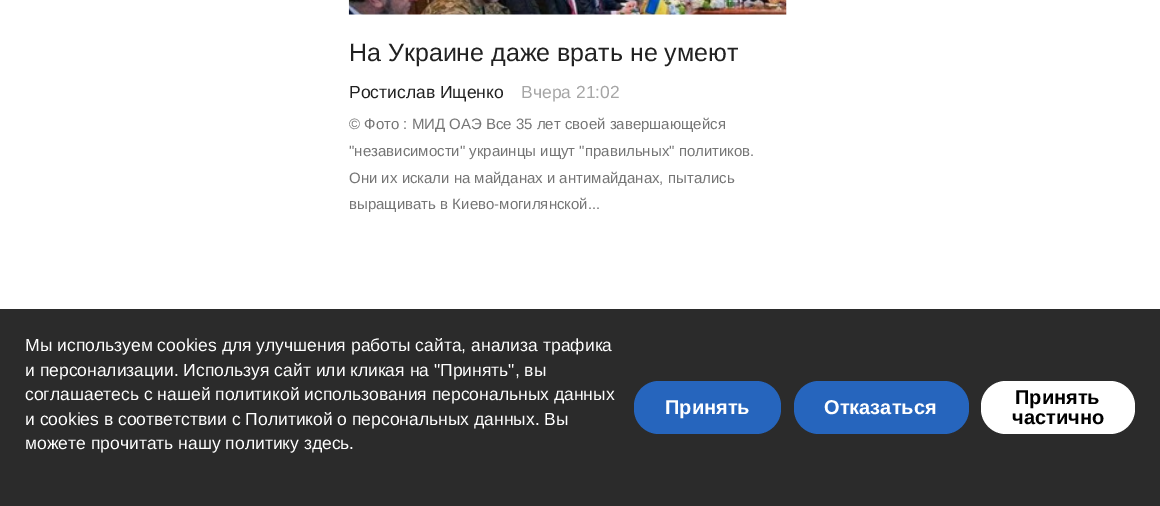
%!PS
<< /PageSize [1160 506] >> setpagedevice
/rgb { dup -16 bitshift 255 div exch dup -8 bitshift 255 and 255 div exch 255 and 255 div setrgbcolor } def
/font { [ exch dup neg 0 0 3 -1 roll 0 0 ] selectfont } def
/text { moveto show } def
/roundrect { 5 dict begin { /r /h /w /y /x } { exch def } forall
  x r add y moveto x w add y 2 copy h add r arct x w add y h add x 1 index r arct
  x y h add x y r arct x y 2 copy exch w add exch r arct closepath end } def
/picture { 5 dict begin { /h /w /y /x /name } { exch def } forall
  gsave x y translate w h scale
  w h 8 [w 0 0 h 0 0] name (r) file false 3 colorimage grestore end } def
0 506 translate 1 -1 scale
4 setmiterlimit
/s1 { /LiberationSans-Regular 25 font 16#212121 rgb } def
/s2 { /LiberationSans-Regular 17.5 font 16#212121 rgb } def
/s3 { /LiberationSans-Regular 17.5 font 16#A6A6A6 rgb } def
/s4 { /LiberationSans-Regular 15 font 16#757575 rgb } def
/s5 { /LiberationSans-Regular 17.5 font 16#FFFFFF rgb } def
/s6 { /LiberationSans-Bold 20 font 16#FFFFFF rgb } def
/s7 { /LiberationSans-Bold 20 font 16#000000 rgb } def
16#FFFFFF rgb
0 0 1160 506 rectfill
(pic1.raw) 348 0 439 15 picture
s1
(На Украине даже врать не умеют) 349 61 text
s2
(Ростислав Ищенко) 349 98 text
s3
(Вчера 21:02) 521 98 text
s4
(© Фото : МИД ОАЭ Все 35 лет своей завершающейся) 349 129 text
("независимости" украинцы ищут "правильных" политиков.) 349 156 text
(Они их искали на майданах и антимайданах, пытались) 349 183 text
(выращивать в Киево-могилянской...) 349 209 text
16#2B2B2B rgb
0 309 1160 197 rectfill
s5
(Мы используем cookies для улучшения работы сайта, анализа трафика) 25 351 text
(и персонализации. Используя сайт или кликая на "Принять", вы) 25 376 text
(соглашаетесь с нашей политикой использования персональных данных) 25 400 text
(и cookies в соответствии с Политикой о персональных данных. Вы) 25 425 text
(можете прочитать нашу политику здесь.) 25 449 text
16#2665BD rgb
634 381 147 53 25 roundrect fill
s6
(Принять) 665 414 text
16#2665BD rgb
794 381 175 53 25 roundrect fill
s6
(Отказаться) 824 414 text
981 381 154 53 25 roundrect fill
s7
(Принять) 1015 404 text
(частично) 1012 424 text
showpage
